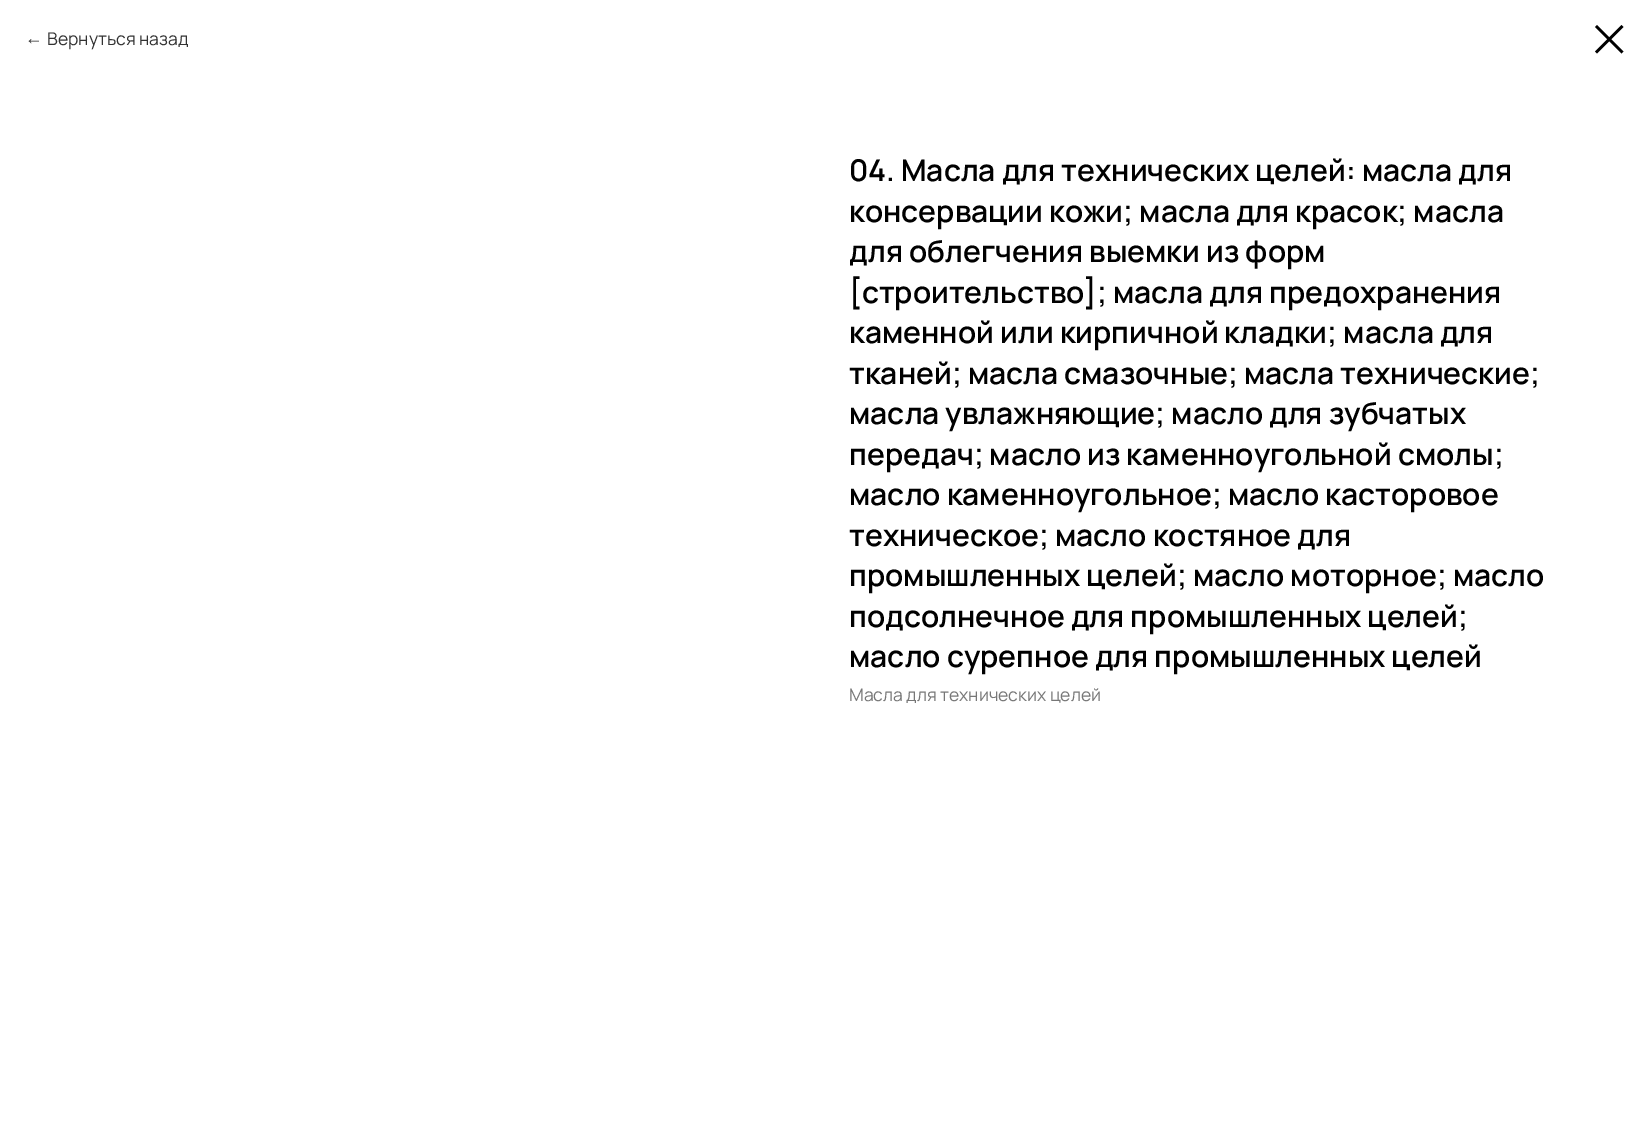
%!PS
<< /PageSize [1648 1148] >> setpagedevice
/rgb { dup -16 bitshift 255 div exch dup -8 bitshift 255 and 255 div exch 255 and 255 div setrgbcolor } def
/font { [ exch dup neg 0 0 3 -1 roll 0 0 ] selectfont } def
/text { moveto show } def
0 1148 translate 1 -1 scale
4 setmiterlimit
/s1 { /LiberationSans-Regular 17.5 font 16#333333 rgb } def
/s2 { /Manrope-Regular 17.5 font 16#333333 rgb } def
/s3 { /Manrope-SemiBold 30 font 16#000000 rgb } def
/s4 { /Manrope-Regular 17.5 font 16#777777 rgb } def
16#FFFFFF rgb
0 0 1648 1148 rectfill
s1
(←) 25 44 text
s2
(Вернуться назад) 47 45 text
16#000000 rgb
1595 27 moveto 1597 25 lineto 1623.5 51.5 lineto 1621.5 53.5 lineto closepath eofill
1621.5 25 moveto 1623.5 27 lineto 1597 53.5 lineto 1595 51.5 lineto closepath eofill
s3
(04. Масла для технических целей: масла для) 849 181 text
(консервации кожи; масла для красок; масла) 849 222 text
(для облегчения выемки из форм) 849 262 text
([строительство]; масла для предохранения) 849 303 text
(каменной или кирпичной кладки; масла для) 849 343 text
(тканей; масла смазочные; масла технические;) 849 384 text
(масла увлажняющие; масло для зубчатых) 849 424 text
(передач; масло из каменноугольной смолы;) 849 465 text
(масло каменноугольное; масло касторовое) 849 505 text
(техническое; масло костяное для) 849 546 text
(промышленных целей; масло моторное; масло) 849 586 text
(подсолнечное для промышленных целей;) 849 627 text
(масло сурепное для промышленных целей) 849 667 text
s4
(Масла для технических целей) 849 701 text
showpage
